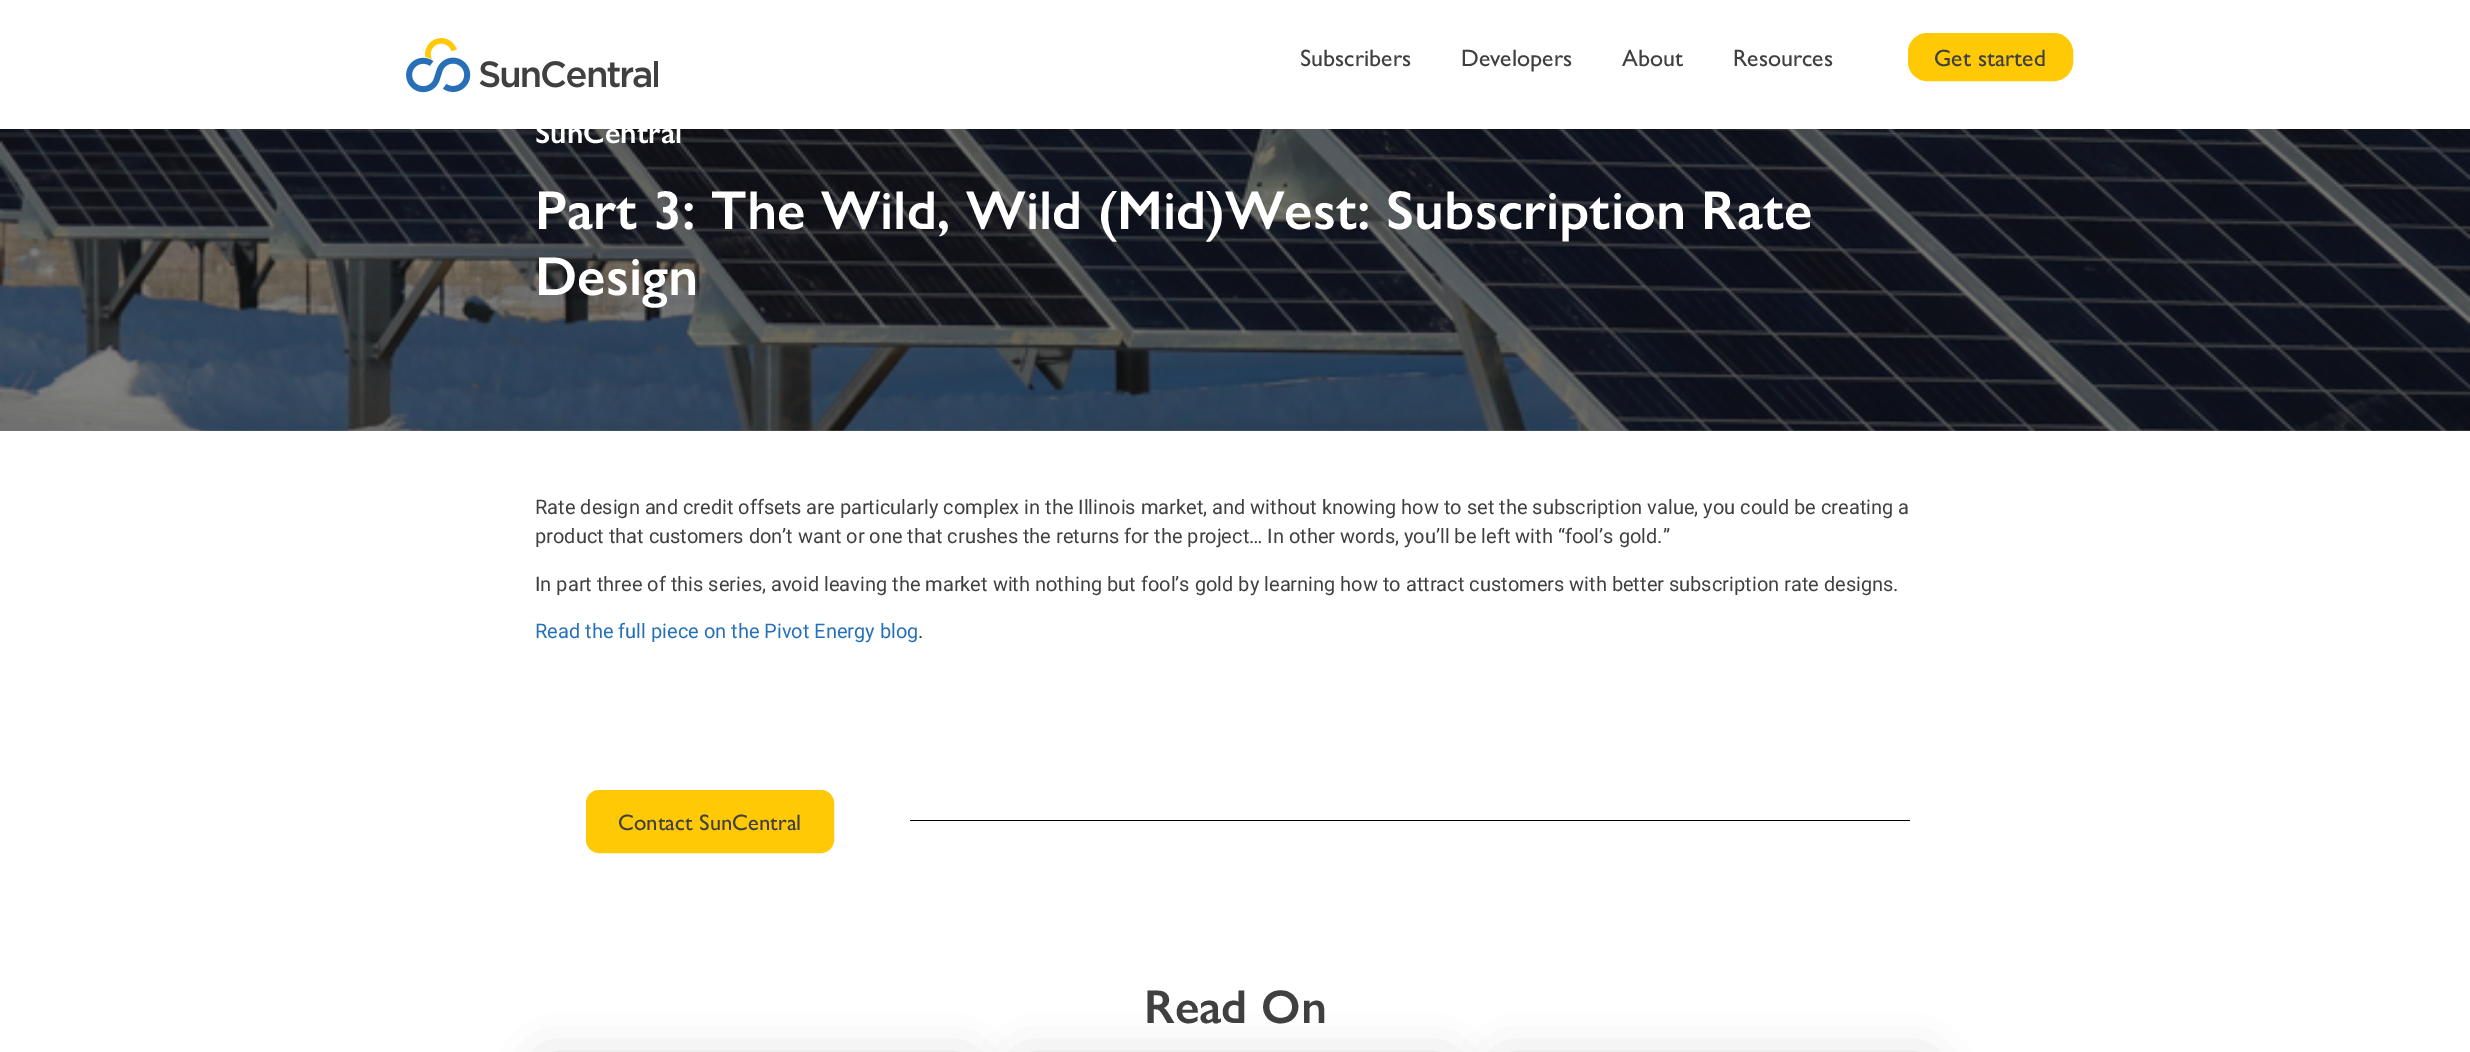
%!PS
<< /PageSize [2470 1052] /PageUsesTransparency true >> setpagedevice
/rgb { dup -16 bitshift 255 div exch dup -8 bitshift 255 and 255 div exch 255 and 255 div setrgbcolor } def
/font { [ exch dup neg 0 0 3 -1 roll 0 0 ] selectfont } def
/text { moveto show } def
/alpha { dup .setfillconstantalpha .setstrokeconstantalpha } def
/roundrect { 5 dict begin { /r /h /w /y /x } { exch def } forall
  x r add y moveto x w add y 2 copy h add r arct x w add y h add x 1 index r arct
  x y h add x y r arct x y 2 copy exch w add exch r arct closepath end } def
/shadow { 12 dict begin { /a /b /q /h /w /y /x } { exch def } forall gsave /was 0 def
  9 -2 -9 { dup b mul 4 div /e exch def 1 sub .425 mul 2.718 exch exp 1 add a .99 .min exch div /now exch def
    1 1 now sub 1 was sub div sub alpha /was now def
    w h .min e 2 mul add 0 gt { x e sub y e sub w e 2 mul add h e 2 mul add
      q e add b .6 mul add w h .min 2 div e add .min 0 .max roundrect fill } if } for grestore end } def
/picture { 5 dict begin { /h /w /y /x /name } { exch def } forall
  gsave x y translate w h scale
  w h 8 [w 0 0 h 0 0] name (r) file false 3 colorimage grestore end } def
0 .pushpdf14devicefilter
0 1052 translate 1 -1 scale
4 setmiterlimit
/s1 { /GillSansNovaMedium-Medium 23.75 font 16#404040 rgb } def
/s2 { /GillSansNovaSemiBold-SemiBold 30 font 16#FFFFFF rgb } def
/s3 { /GillSansNovaSemiBold-SemiBold 55 font 16#FFFFFF rgb } def
/s4 { /Roboto-Regular 20 font 16#404040 rgb } def
/s5 { /Roboto-Regular 20 font 16#2670B8 rgb } def
/s6 { /GillSansNovaMedium-Medium 22.5 font 16#404040 rgb } def
/s7 { /GillSansNovaSemiBold-SemiBold 47.5 font 16#404040 rgb } def
16#FFFFFF rgb
0 0 2470 1052 rectfill
(pic1.raw) 406 38 252 55 picture
s1
(Subscribers) 1300 66 text
(Developers) 1461 66 text
(About) 1622 66 text
(Resources) 1733 66 text
16#FFC905 rgb
1908.5 33.5 164 47 18.5 roundrect gsave fill grestore
stroke
s1
(Get started) 1934 66 text
(pic2.raw) 0 129 2470 302 picture
s2
(SunCentral) 535 143 text
s3
(Part 3: The Wild, Wild \(Mid\)West: Subscription Rate) 535 229 text
(Design) 535 295 text
s4
(Rate design and credit offsets are particularly complex in the Illinois market, and without knowing how to set the subscription value, you could be creating a) 535 514 text
(product that customers don’t want or one that crushes the returns for the project… In other words, you’ll be left with “fool’s gold.”) 535 543 text
(In part three of this series, avoid leaving the market with nothing but fool’s gold by learning how to attract customers with better subscription rate designs.) 535 591 text
s5
(Read the full piece on the Pivot Energy blog) 535 638 text
s4
(.) 918 638 text
16#FFC905 rgb
586.5 790.5 247 62 12.5 roundrect gsave fill grestore
stroke
s6
(Contact SunCentral) 618 830 text
16#000000 rgb
910 820 1000 1 rectfill
s7
(Read On) 1144 1023 text
16#000000 rgb
548 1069 416 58 0 25 0.25 shadow
1026 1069 418 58 0 25 0.25 shadow
1506 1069 417 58 0 25 0.25 shadow
.poppdf14devicefilter showpage
